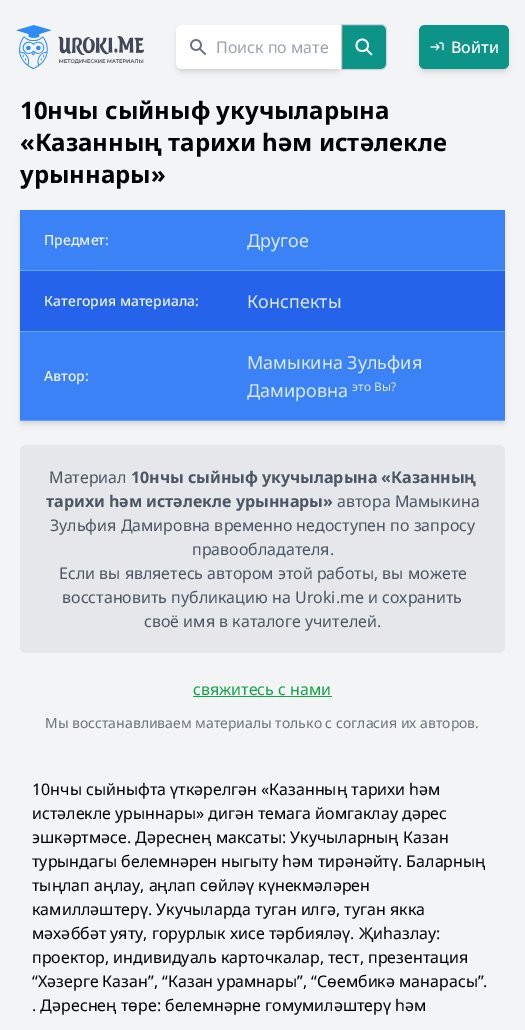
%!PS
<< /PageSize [525 1030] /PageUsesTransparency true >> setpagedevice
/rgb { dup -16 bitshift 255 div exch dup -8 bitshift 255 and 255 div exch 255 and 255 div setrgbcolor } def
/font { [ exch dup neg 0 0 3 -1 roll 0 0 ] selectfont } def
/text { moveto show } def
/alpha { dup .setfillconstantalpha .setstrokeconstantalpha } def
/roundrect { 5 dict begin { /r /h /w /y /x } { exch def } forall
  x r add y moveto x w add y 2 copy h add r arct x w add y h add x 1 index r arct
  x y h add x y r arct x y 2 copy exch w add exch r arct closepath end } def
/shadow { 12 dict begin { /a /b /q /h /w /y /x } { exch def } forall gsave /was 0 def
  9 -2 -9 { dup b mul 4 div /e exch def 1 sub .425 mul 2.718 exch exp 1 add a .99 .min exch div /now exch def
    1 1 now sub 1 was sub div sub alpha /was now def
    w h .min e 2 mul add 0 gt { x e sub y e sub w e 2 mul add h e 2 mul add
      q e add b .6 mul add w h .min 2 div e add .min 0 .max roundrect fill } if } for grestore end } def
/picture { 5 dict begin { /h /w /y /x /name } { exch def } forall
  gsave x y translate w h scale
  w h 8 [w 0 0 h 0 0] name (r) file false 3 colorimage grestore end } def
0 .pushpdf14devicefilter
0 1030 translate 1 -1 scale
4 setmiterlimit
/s1 { /NotoSans-Regular 16 font 16#9CA3AF rgb } def
/s2 { /NotoSans-Medium 16 font 16#FFFFFF rgb } def
/s3 { /NotoSans-Bold 24 font 16#000000 rgb } def
/s4 { /NotoSans-Medium 14 font 16#EFF6FF rgb } def
/s5 { /NotoSans-Regular 18 font 16#DBEAFE rgb } def
/s6 { /NotoSans-Regular 12 font 16#DBEAFE rgb } def
/s7 { /NotoSans-Regular 16 font 16#4B5563 rgb } def
/s8 { /NotoSans-Bold 16 font 16#4B5563 rgb } def
/s9 { /NotoSans-Regular 16 font 16#16A34A rgb } def
/s10 { /NotoSans-Regular 14 font 16#6B7280 rgb } def
/s11 { /NotoSans-Regular 16 font 16#000000 rgb } def
16#F3F4F6 rgb
0 0 525 1030 rectfill
(pic1.raw) 16 25 128 44 picture
16#0D9488 rgb
341.5 24.5 moveto 381 24.5 lineto 384 24.5 386.5 27 386.5 30 curveto 386.5 64 lineto 386.5 67 384 69.5 381 69.5 curveto 341.5 69.5 lineto closepath gsave fill grestore
16#D1D5DB rgb
stroke
16#000000 rgb
178 29 161 40 4 2 0.1 shadow
177 30 163 42 5 3 0.1 shadow
16#FFFFFF rgb
182 25 moveto 341 25 lineto 341 69 lineto 182 69 lineto 178.5 69 176 66.5 176 63 curveto 176 31 lineto 176 27.5 178.5 25 182 25 curveto closepath fill
(pic2.raw) 190 39 16 16 picture
s1
(Поиск по мате) 216 53 text
16#FFFFFF rgb
1.7 setlinewidth
1 setlinecap
1 setlinejoin
371.5 54.5 moveto 366.5 49.5 lineto 368 45.5 moveto 368 53 356.5 53 356.5 45.5 curveto 356.5 37.5 368 37.5 368 45.5 curveto closepath stroke
16#000000 rgb
421 29 86 40 4 2 0.1 shadow
420 30 88 42 5 3 0.1 shadow
16#0D9488 rgb
419 25 90 44 6 roundrect fill
(pic3.raw) 430 42 14 9 picture
s2
(Войти) 451 53 text
s3
(10нчы сыйныф укучыларына) 20 119 text
(«Казанның тарихи һәм истәлекле) 20 151 text
(урыннары») 20 183 text
22 214 481 207 0 2 0.1 shadow
21 215 483 209 0 3 0.1 shadow
16#3B82F6 rgb
20 210 485 60 rectfill
16#60A5FA rgb
20 270 485 1 rectfill
s4
(Предмет:) 44 245 text
s5
(Другое) 247 247 text
16#2563EB rgb
20 271 485 60 rectfill
16#60A5FA rgb
20 331 485 1 rectfill
s4
(Категория материала:) 44 306 text
s5
(Конспекты) 247 308 text
16#3B82F6 rgb
20 332 485 88 rectfill
16#60A5FA rgb
20 420 485 1 rectfill
s4
(Автор:) 44 381 text
s5
(Мамыкина Зульфия) 247 369 text
(Дамировна) 247 397 text
s6
(это Вы?) 352 391 text
16#E5E7EB rgb
20 445 485 208 6 roundrect fill
s7
(Материал) 49 483 text
s8
(10нчы сыйныф укучыларына «Казанның) 131 483 text
(тарихи һәм истәлекле урыннары») 46 507 text
s7
(автора Мамыкина) 337 507 text
(Зульфия Дамировна временно недоступен по запросу) 50 531 text
(правообладателя.) 192 555 text
(Если вы являетесь автором этой работы, вы можете) 59 579 text
(восстановить публикацию на Uroki.me и сохранить) 62 603 text
(своё имя в каталоге учителей.) 144 627 text
s9
(свяжитесь с нами) 193 695 text
193 696 139 1 rectfill
s10
(Мы восстанавливаем материалы только с согласия их авторов.) 45 728 text
s11
(10нчы сыйныфта үткәрелгән «Казанның тарихи һәм) 32 795 text
(истәлекле урыннары» дигән темага йомгаклау дәрес) 32 819 text
(эшкәртмәсе. Дәреснең максаты: Укучыларның Казан) 32 843 text
(турындагы белемнәрен ныгыту һәм тирәнәйтү. Баларның) 32 867 text
(тыңлап аңлау, аңлап сөйләү күнекмәләрен) 32 891 text
(камилләштерү. Укучыларда туган илгә, туган якка) 32 915 text
(мәхәббәт уяту, горурлык хисе тәрбияләү. Җиһазлау:) 32 939 text
(проектор, индивидуаль карточкалар, тест, презентация) 32 963 text
(“Хәзерге Казан”, “Казан урамнары”, “Сөембикә манарасы”.) 32 987 text
(. Дәреснең төре: белемнәрне гомумиләштерү һәм) 32 1011 text
.poppdf14devicefilter showpage
